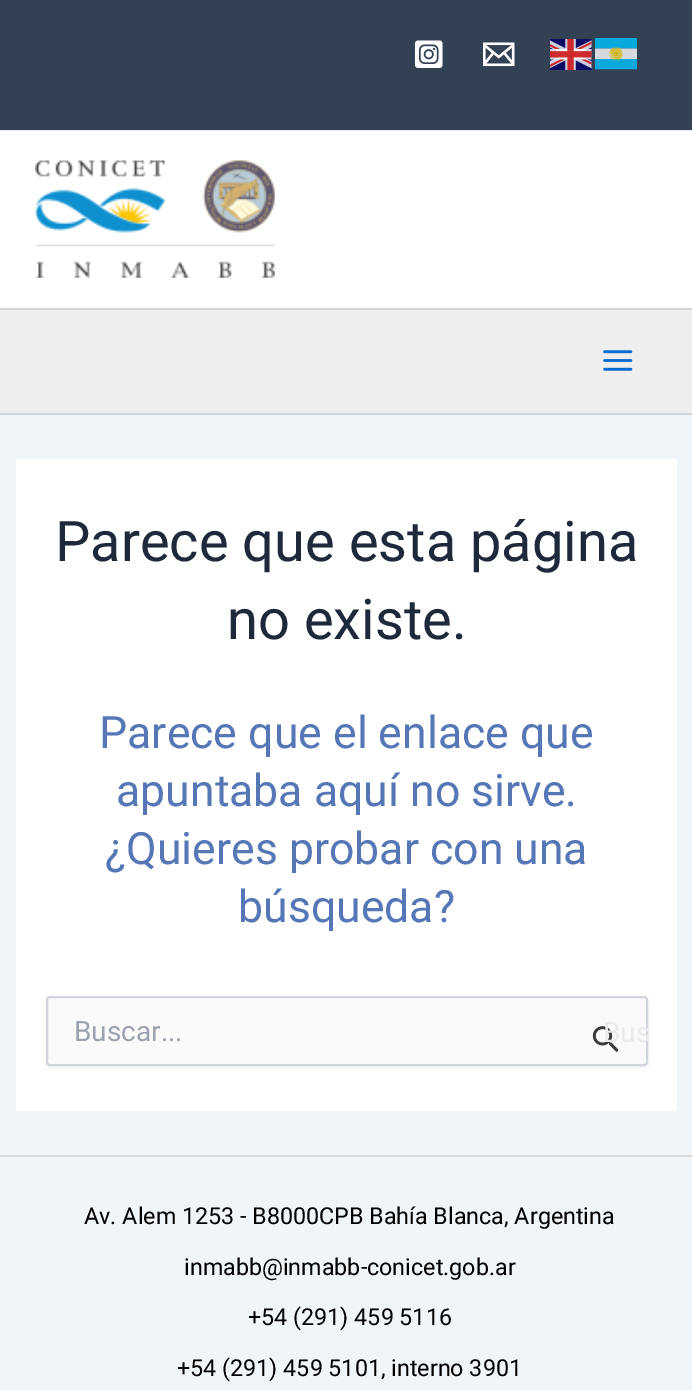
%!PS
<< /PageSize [692 1390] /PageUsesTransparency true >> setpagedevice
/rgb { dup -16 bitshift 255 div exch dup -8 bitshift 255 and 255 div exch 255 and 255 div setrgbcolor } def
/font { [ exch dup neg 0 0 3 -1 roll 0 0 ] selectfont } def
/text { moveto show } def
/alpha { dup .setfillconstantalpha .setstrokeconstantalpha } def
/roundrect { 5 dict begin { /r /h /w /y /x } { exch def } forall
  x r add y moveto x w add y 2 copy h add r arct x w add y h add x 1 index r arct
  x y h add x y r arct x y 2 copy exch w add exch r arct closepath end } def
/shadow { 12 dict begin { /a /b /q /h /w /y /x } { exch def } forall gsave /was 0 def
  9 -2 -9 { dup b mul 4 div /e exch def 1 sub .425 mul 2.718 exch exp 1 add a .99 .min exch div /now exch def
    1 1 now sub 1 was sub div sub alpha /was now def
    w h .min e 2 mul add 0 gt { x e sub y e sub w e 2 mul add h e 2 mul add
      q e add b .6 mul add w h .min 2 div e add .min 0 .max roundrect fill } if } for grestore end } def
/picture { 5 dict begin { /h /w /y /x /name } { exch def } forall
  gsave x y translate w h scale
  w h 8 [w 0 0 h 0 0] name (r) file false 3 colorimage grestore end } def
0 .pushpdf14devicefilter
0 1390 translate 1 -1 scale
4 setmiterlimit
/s1 { /Roboto-Regular 56 font 16#1E293B rgb } def
/s2 { /Roboto-Regular 44.6 font 16#5577B6 rgb } def
/s3 { /Roboto-Regular 28 font 16#9CA3AF rgb } def
/s4 { /Roboto-Regular 28 font 16#E9EAEA rgb } def
/s5 { /Roboto-Regular 23.3 font 16#000000 rgb } def
16#F0F5FA rgb
0 0 692 1390 rectfill
16#334155 rgb
0 0 692 130 rectfill
16#EAEAEA rgb
0 130 692 1 rectfill
(pic1.raw) 414 40 29 28 picture
(pic2.raw) 483 42 32 25 picture
(pic3.raw) 550 39 42 31 picture
(pic4.raw) 595 38 42 32 picture
16#FFFFFF rgb
0 131 692 177 rectfill
16#D1D5DB rgb
0 308 692 2 rectfill
(pic5.raw) 35 160 240 118 picture
16#EEEEEE rgb
0 310 692 103 rectfill
16#D1D5DB rgb
0 413 692 2 rectfill
(pic6.raw) 603 350 30 21 picture
16#FFFFFF rgb
16 459 661 652 rectfill
s1
(Parece que esta página) 55 561 text
(no existe.) 227 639 text
s2
(Parece que el enlace que) 99 748 text
(apuntaba aquí no sirve.) 116 806 text
(¿Quieres probar con una) 105 864 text
(búsqueda?) 238 922 text
16#000000 rgb
46 998 602 70 4 2 0.05 shadow
16#FAFAFA rgb
47 997 600 68 3 roundrect gsave fill grestore
16#D1D5DB rgb
2 setlinewidth
stroke
s3
(Buscar...) 74 1041 text
(pic7.raw) 592 1026 26 27 picture
gsave
569 996 79 73 4 roundrect clip newpath
s4
(Bus) 603 1042 text
grestore
16#D6D9DC rgb
0 1155 692 2 rectfill
s5
(Av. Alem 1253 - B8000CPB Bahía Blanca, Argentina) 84 1224 text
(inmabb@inmabb-conicet.gob.ar) 184 1275 text
(+54 \(291\) 459 5116) 248 1325 text
(+54 \(291\) 459 5101, interno 3901) 177 1376 text
.poppdf14devicefilter showpage
